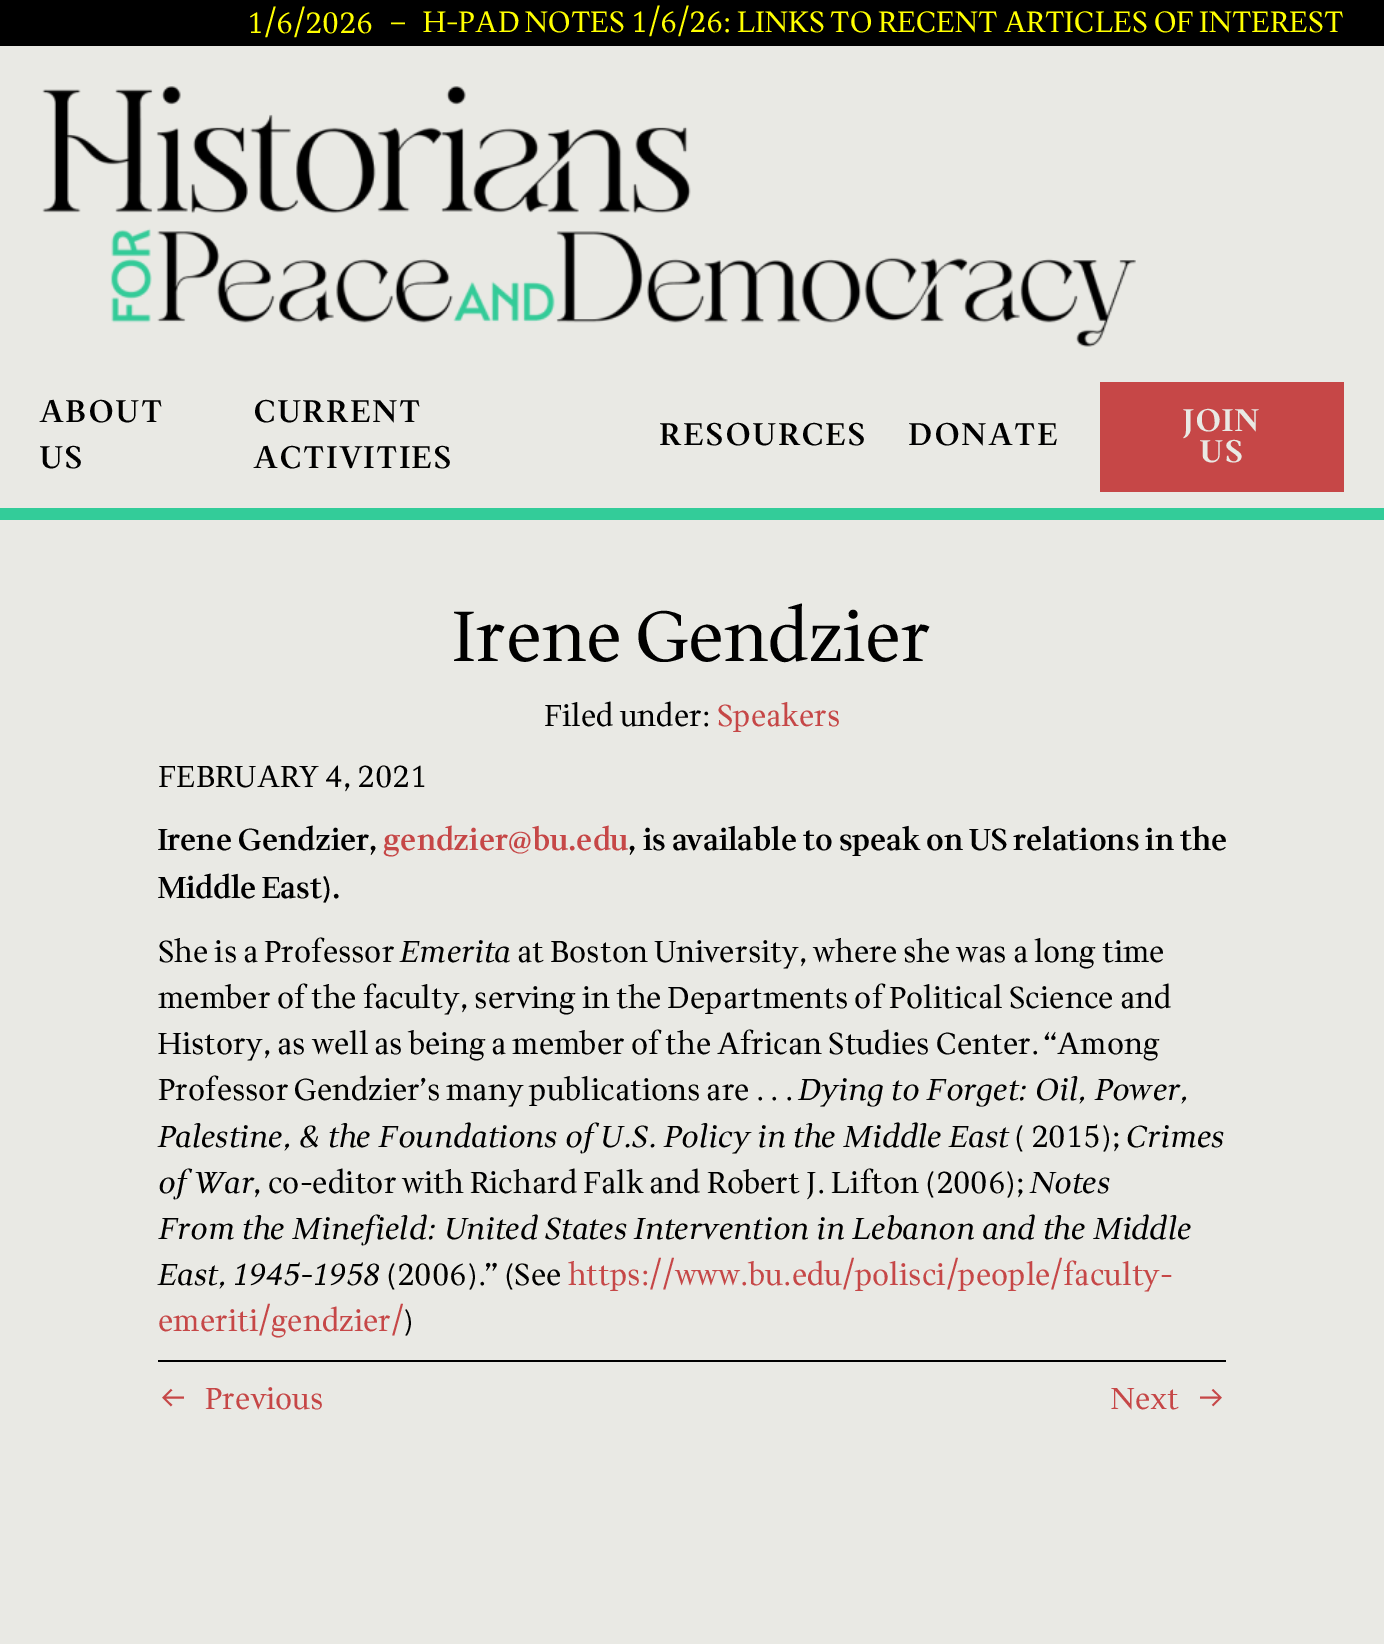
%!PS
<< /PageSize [1384 1644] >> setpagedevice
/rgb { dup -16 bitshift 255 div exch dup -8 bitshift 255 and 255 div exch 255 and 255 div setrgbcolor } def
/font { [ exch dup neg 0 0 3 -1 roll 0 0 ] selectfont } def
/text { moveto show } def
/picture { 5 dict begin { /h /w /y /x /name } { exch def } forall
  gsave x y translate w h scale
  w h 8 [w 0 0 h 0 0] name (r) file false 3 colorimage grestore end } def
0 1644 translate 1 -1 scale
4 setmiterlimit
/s1 { /Wittgenstein-Regular 29.15 font 16#FFFF00 rgb } def
/s2 { /Wittgenstein-Regular 30.1 font 16#FFFF00 rgb } def
/s3 { /Wittgenstein-Regular 70.5 font 16#000000 rgb } def
/s4 { /Wittgenstein-Regular 30.1 font 16#000000 rgb } def
/s5 { /Wittgenstein-Regular 30.1 font 16#C64747 rgb } def
/s6 { /Wittgenstein-SemiBold 30.1 font 16#000000 rgb } def
/s7 { /Wittgenstein-SemiBold 30.1 font 16#C64747 rgb } def
/s8 { /Wittgenstein-Italic 30.1 font 16#000000 rgb } def
16#E9E9E4 rgb
0 0 1384 1644 rectfill
16#000000 rgb
0 0 1384 46 rectfill
s1
(1/6/2026) 247 33 text
s2
(–) 389 34 text
s1
(H-PAD NOTES 1/6/26: LINKS TO RECENT ARTICLES OF INTEREST) 423 32 text
16#33CC99 rgb
0 508 1384 12 rectfill
(pic1.raw) 42 86 1094 261 picture
/Wittgenstein-SemiBold 31 font
16#000000 rgb
40 422 moveto 3.1 0 (ABOUT) ashow
40 468 moveto 3.1 0 (US) ashow
254 422 moveto 3.1 0 (CURRENT) ashow
254 468 moveto 3.1 0 (ACTIVITIES) ashow
660 445 moveto 3.1 0 (RESOURCES) ashow
909 445 moveto 3.1 0 (DONATE) ashow
16#C64747 rgb
1100 382 244 110 rectfill
/Wittgenstein-Bold 31 font
16#E9E9E4 rgb
1183 431 moveto 2 0 (JOIN) ashow
1200 462 moveto 2 0 (US) ashow
s3
(Irene Gendzier) 452 661 text
s4
(Filed under:) 544 726 text
s5
(Speakers) 717 726 text
s4
(FEBRUARY 4, 2021) 158 787 text
s6
(Irene Gendzier,) 158 850 text
s7
(gendzier@bu.edu) 383 850 text
s6
(, is available to speak on) 628 850 text
(US relations in the) 969 850 text
(Middle East\).) 158 898 text
s4
(She is a Professor) 158 962 text
s8
(Emerita) 400 962 text
s4
(at Boston University, where she was a long time) 517 962 text
(member of the faculty, serving in the Departments of Political Science and) 158 1008 text
(History, as well as being a member of the African Studies Center. “Among) 158 1054 text
(Professor Gendzier’s many publications are . . .) 158 1100 text
s8
(Dying to Forget: Oil, Power,) 798 1100 text
(Palestine, & the Foundations of U.S. Policy in the Middle East) 158 1147 text
s4
(\( 2015\);) 1014 1147 text
s8
(Crimes) 1126 1147 text
(of War) 158 1193 text
s4
(, co-editor with Richard Falk and Robert J. Lifton \(2006\);) 253 1193 text
s8
(Notes) 1030 1193 text
(From the Minefield: United States Intervention in Lebanon and the Middle) 158 1239 text
(East, 1945-1958) 158 1285 text
s4
(\(2006\).” \(See) 386 1285 text
s5
(https://www.bu.edu/polisci/people/faculty-) 568 1285 text
(emeriti/gendzier/) 158 1331 text
s4
(\)) 403 1331 text
158 1360 1068 2 rectfill
s5
(←) 158 1409 text
(Previous) 205 1409 text
(Next) 1111 1409 text
(→) 1196 1409 text
showpage
